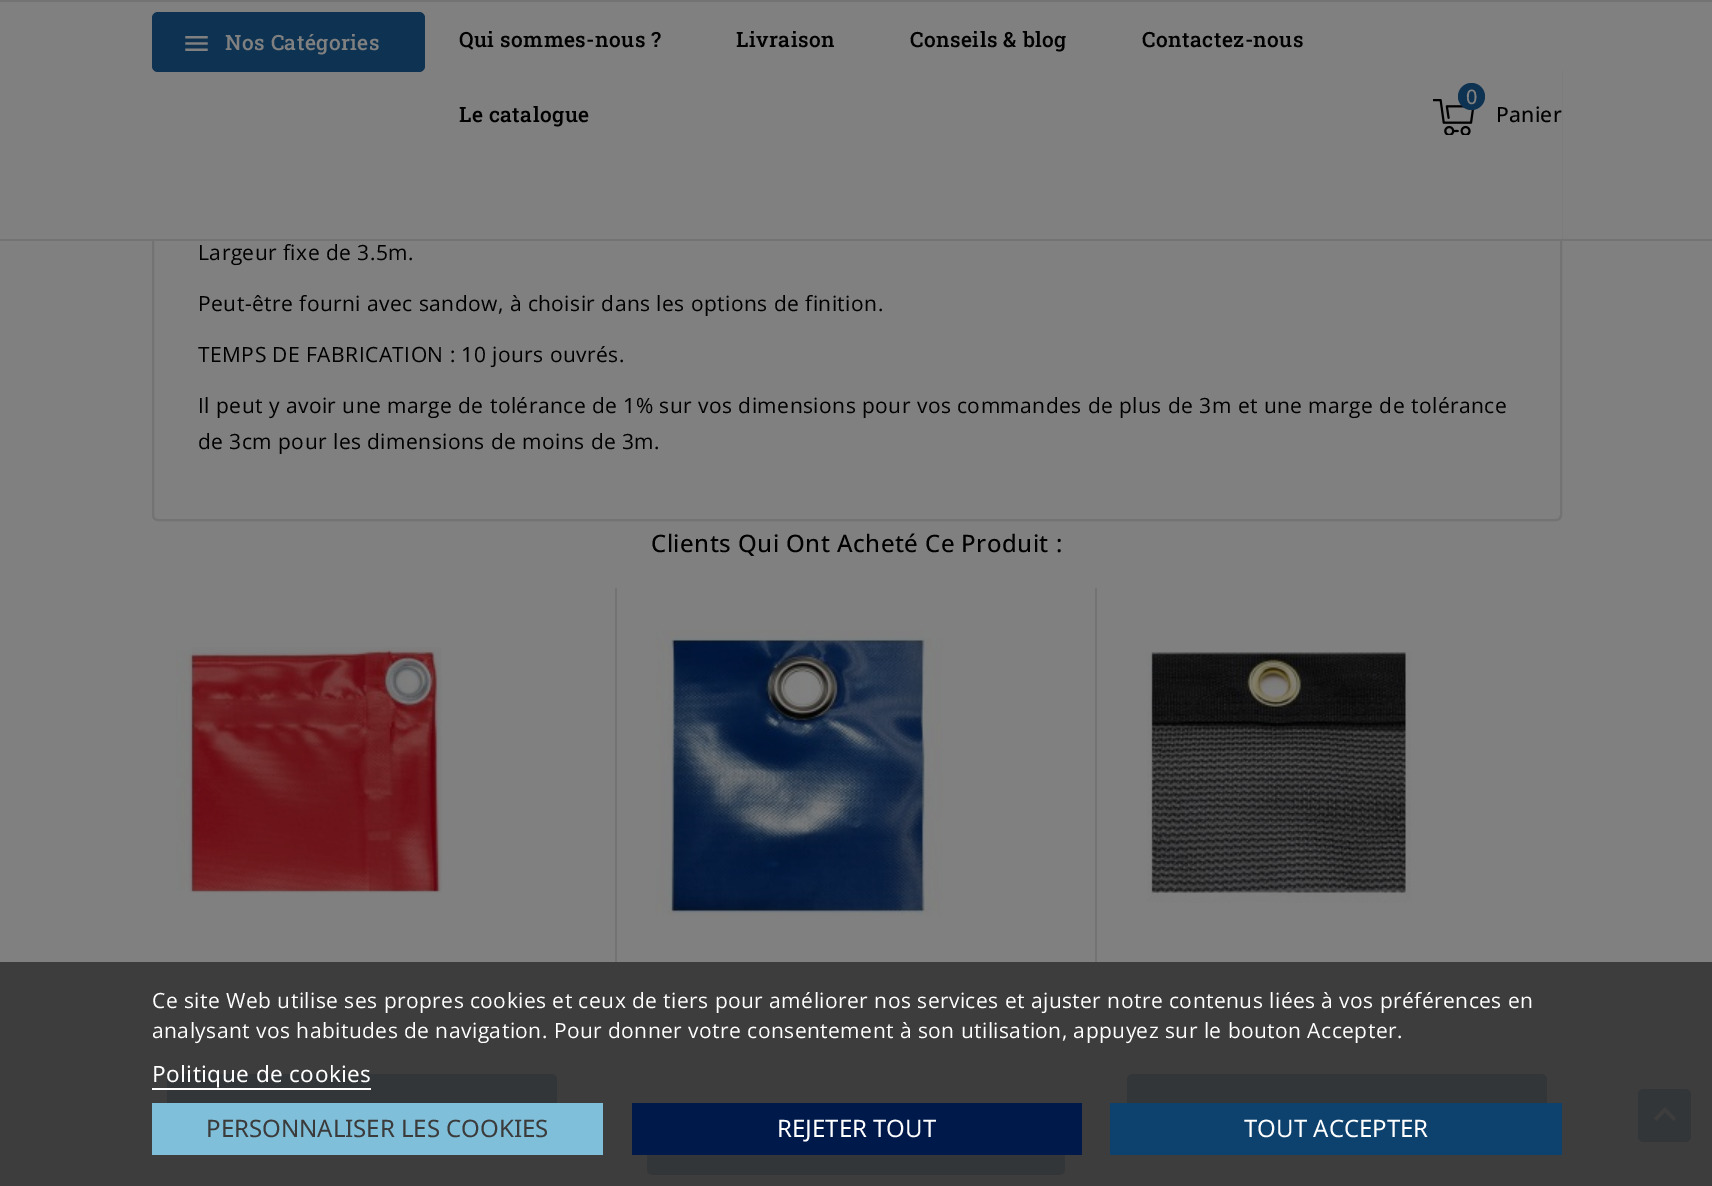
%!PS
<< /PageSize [1712 1186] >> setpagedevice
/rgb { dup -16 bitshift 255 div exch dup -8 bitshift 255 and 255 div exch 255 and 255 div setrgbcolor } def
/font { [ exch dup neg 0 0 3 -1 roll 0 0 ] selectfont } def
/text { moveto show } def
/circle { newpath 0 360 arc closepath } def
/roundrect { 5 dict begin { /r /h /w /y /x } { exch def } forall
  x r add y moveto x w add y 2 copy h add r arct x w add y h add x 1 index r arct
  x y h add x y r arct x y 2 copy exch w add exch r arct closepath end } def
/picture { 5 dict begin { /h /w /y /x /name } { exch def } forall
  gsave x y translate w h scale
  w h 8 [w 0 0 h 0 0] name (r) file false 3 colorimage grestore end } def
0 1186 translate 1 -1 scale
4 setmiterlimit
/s1 { /NotoSans-Regular 24 font 16#3B3B3B rgb } def
/s2 { /NotoSans-Regular 24 font 16#FFFFFF rgb } def
16#808080 rgb
0 0 1712 1186 rectfill
16#3D3D3D rgb
0 962 1712 224 rectfill
16#737373 rgb
2 setlinewidth
153 66 moveto 1556 66 lineto 1559 66 1561 68 1561 71 curveto 1561 515 lineto 1561 518 1559 520 1556 520 curveto 158 520 lineto 155 520 153 518 153 515 curveto closepath stroke
16#808080 rgb
152 65 1410 174 rectfill
16#737373 rgb
0 0 1712 2 rectfill
0 239 1712 2 rectfill
16#0E3251 rgb
152 12 273 60 6 roundrect fill
(pic1.raw) 185 36 23 15 picture
/RobotoSlab-Medium 21 font
16#808080 rgb
225 50 moveto 0.45 0 (Nos Catégories) ashow
16#000000 rgb
459 47 moveto 0.45 0 (Qui sommes-nous ?) ashow
736 47 moveto 0.45 0 (Livraison) ashow
910 47 moveto 0.45 0 (Conseils & blog) ashow
1142 47 moveto 0.45 0 (Contactez-nous) ashow
459 122 moveto 0.45 0 (Le catalogue) ashow
(pic2.raw) 1433 99 42 36 picture
16#0E3251 rgb
1471.5 96.5 13.5 circle fill
/OpenSans-Medium 20 font
16#808080 rgb
1466 104 moveto 0.45 0 (0) ashow
/OpenSans-Medium 21 font
16#000000 rgb
1496 122 moveto 0.25 0 (Panier) ashow
/OpenSans-Regular 21 font
198 260 moveto 0.45 0 (Largeur fixe de 3.5m.) ashow
198 311 moveto 0.45 0 (Peut-être fourni avec sandow, à choisir dans les options de finition.) ashow
198 362 moveto 0.45 0 (TEMPS DE FABRICATION : 10 jours ouvrés.) ashow
198 413 moveto 0.45 0 (Il peut y avoir une marge de tolérance de 1% sur vos dimensions pour vos commandes de plus de 3m et une marge de tolérance) ashow
198 449 moveto 0.45 0 (de 3cm pour les dimensions de moins de 3m.) ashow
/OpenSans-Medium 24 font
651 552 moveto 0.45 0 (Clients Qui Ont Acheté Ce Produit :) ashow
16#737373 rgb
615 588 2 374 rectfill
(pic3.raw) 176 647 266 246 picture
16#323639 rgb
167 1074 390 68 6 roundrect fill
16#737373 rgb
1095 588 2 374 rectfill
(pic4.raw) 655 630 288 286 picture
16#323639 rgb
647 1107 418 68 6 roundrect fill
(pic5.raw) 1147 651 264 252 picture
1127 1074 420 68 6 roundrect fill
/OpenSans-Regular 21 font
16#FFFFFF rgb
152 1008 moveto 0.45 0 (Ce site Web utilise ses propres cookies et ceux de tiers pour améliorer nos services et ajuster notre contenus liées à vos préférences en) ashow
152 1038 moveto 0.45 0 (analysant vos habitudes de navigation. Pour donner votre consentement à son utilisation, appuyez sur le bouton Accepter.) ashow
/NotoSans-Regular 22.5 font
152 1082 moveto 0.45 0 (Politique de cookies) ashow
152 1088 219 2 rectfill
16#7FBFDA rgb
152 1103 451 52 rectfill
s1
(PERSONNALISER LES COOKIES) 206 1137 text
16#00194B rgb
632 1103 450 52 rectfill
s2
(REJETER TOUT) 777 1137 text
16#0D426F rgb
1110 1103 452 52 rectfill
s2
(TOUT ACCEPTER) 1244 1137 text
16#323639 rgb
1638 1089 53 53 6 roundrect fill
16#3D3D3D rgb
1665 1107 moveto 1676 1118.5 lineto 1673.5 1121 lineto 1665 1112.5 lineto 1656.5 1121 lineto 1654 1118.5 lineto closepath fill
showpage
